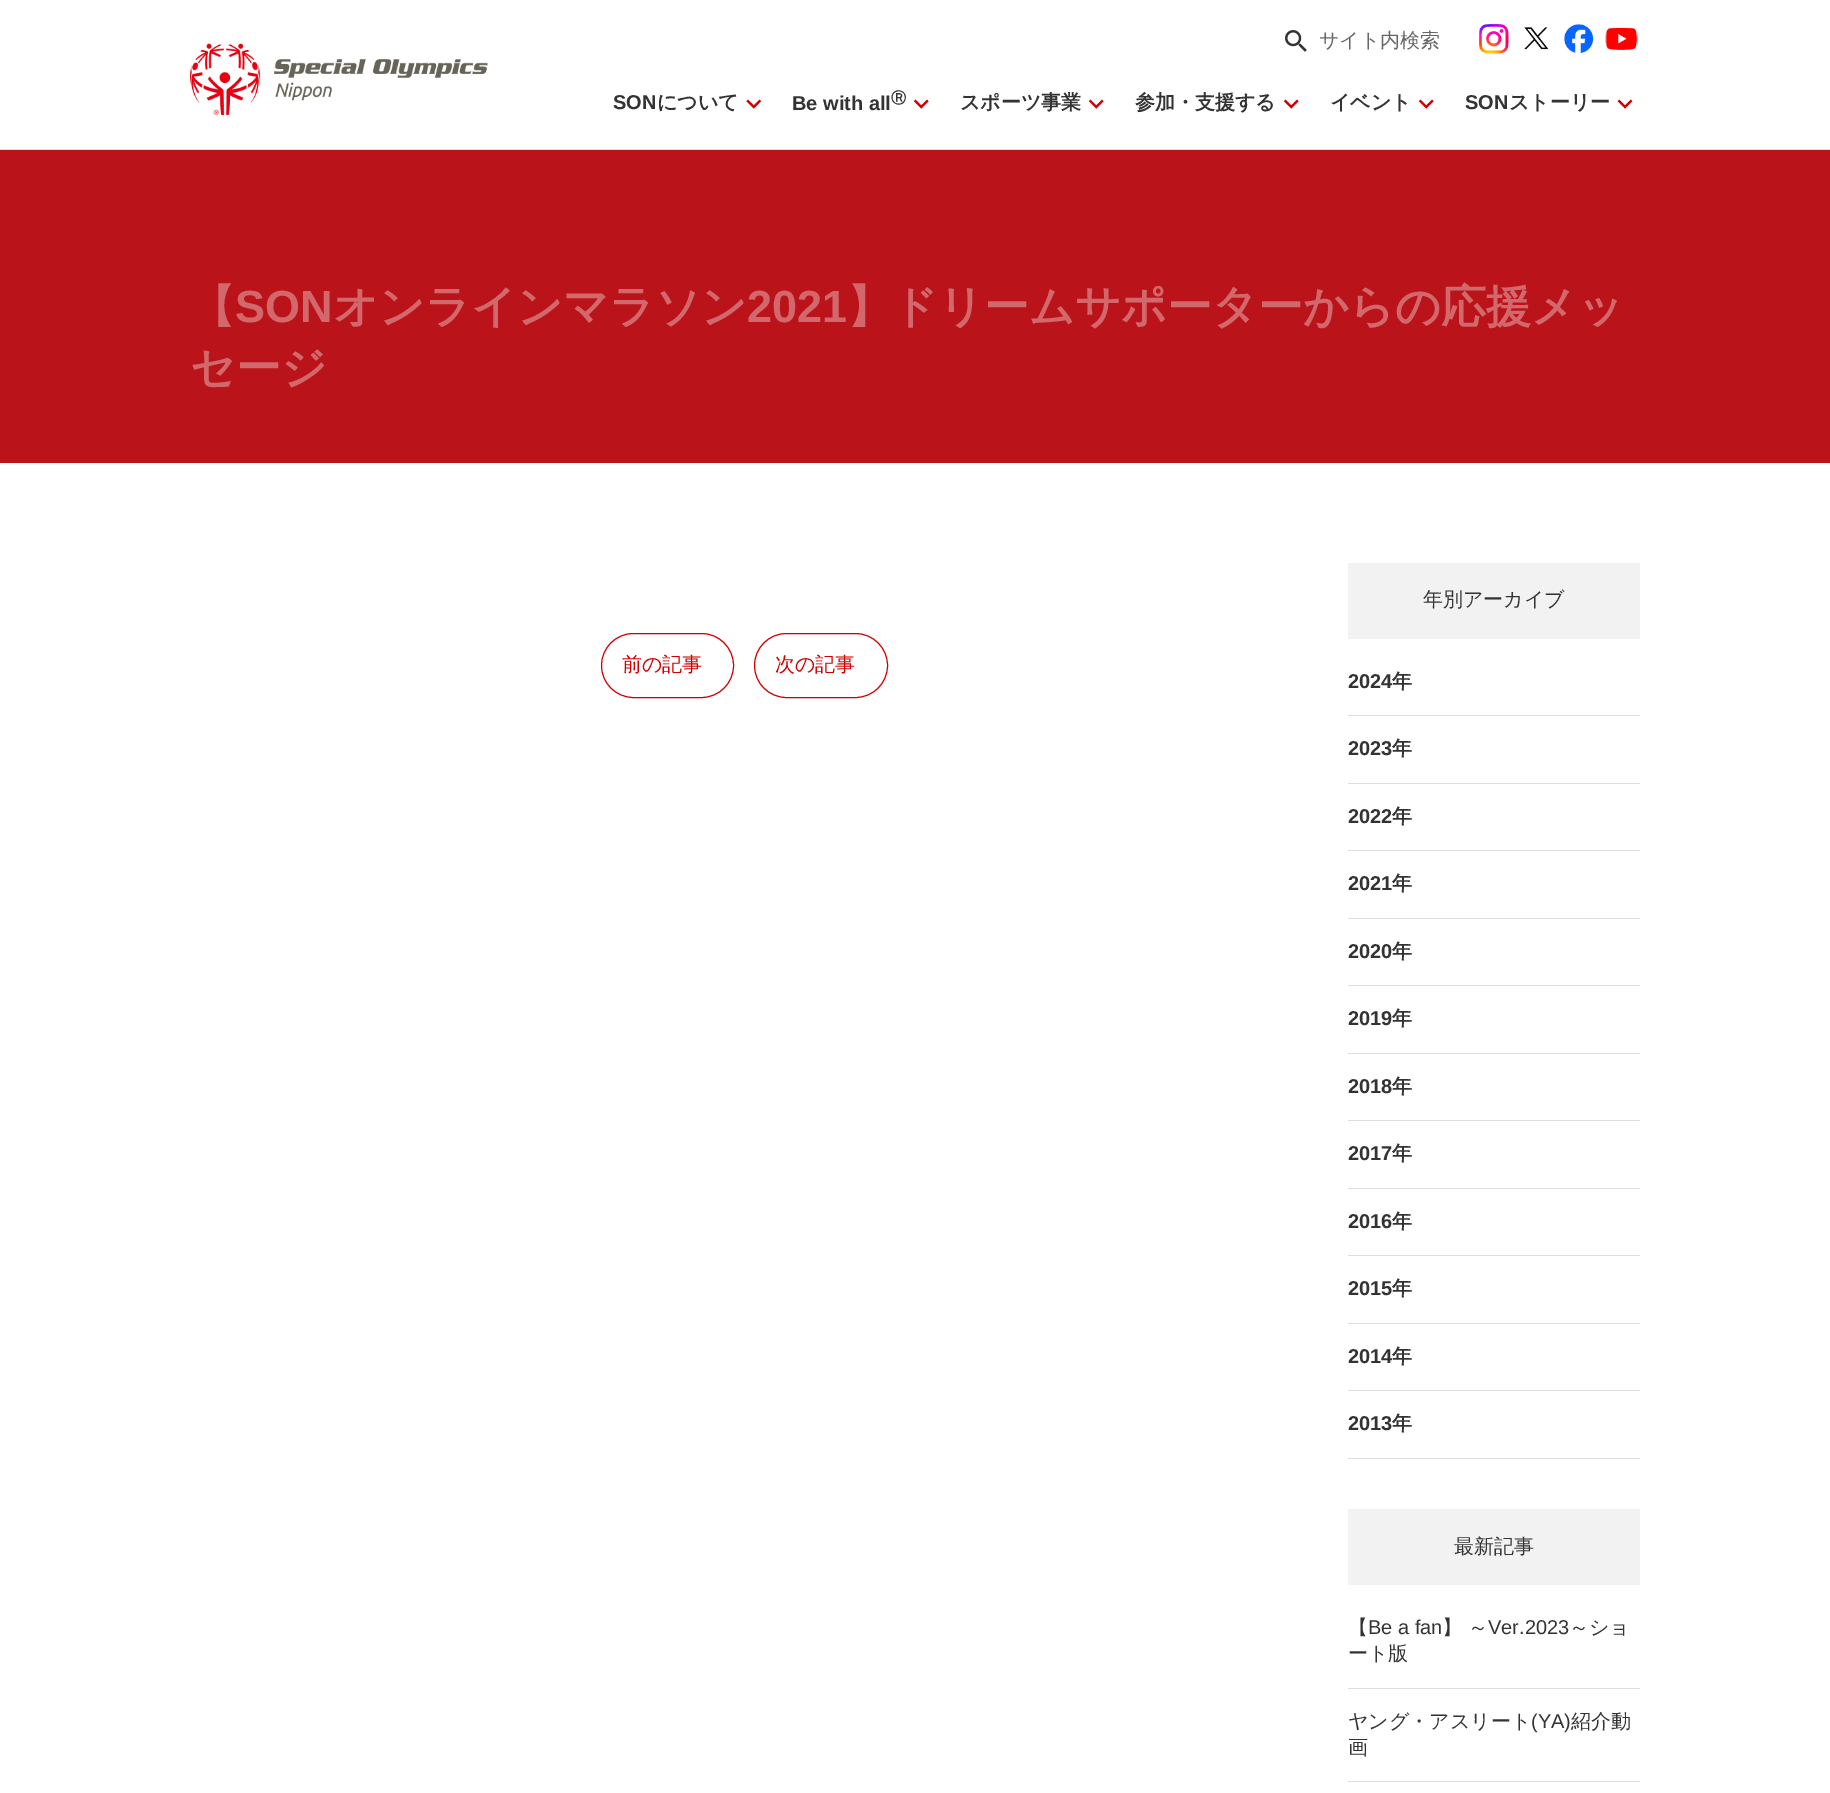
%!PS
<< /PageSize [1830 1793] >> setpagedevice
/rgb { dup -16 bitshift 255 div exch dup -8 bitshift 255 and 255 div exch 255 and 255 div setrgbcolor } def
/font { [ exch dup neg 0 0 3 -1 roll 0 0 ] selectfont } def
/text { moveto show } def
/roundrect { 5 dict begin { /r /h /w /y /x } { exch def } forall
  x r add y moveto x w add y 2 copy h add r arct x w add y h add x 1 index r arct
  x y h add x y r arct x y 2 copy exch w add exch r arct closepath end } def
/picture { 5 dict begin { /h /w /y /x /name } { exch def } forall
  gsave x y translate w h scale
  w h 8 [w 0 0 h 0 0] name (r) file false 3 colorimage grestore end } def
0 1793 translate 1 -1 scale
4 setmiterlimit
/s1 { /WenQuanYiZenHei-Medium 20 font 16#666666 rgb } def
/s2 { /LiberationSans-Bold 20 font 16#333333 rgb } def
/s3 { /WenQuanYiZenHei-Bold 20 font 16#333333 rgb } def
/s4 { /WenQuanYiZenHei-Bold 15 font 16#333333 rgb } def
/s5 { /WenQuanYiZenHei-Bold 45 font 16#D3686C rgb } def
/s6 { /LiberationSans-Bold 45 font 16#D3686C rgb } def
/s7 { /WenQuanYiZenHei-Medium 20 font 16#D00000 rgb } def
/s8 { /WenQuanYiZenHei-Medium 20 font 16#333333 rgb } def
/s9 { /LiberationSans-Regular 20 font 16#333333 rgb } def
16#FFFFFF rgb
0 0 1830 1793 rectfill
16#DDDDDD rgb
0 149 1830 1 rectfill
(pic1.raw) 190 43 298 72 picture
(pic2.raw) 1285 30 22 22 picture
s1
(サイト内検索) 1319 47 text
(pic3.raw) 1479 24 30 30 picture
(pic4.raw) 1524 27 24 23 picture
(pic5.raw) 1564 24 30 29 picture
(pic6.raw) 1605 27 33 23 picture
s2
(SON) 613 109 text
s3
(について) 657 109 text
(pic7.raw) 746 99 16 10 picture
s2
(Be with all) 792 110 text
s4
(Ⓡ) 891 103 text
(pic8.raw) 913 99 16 10 picture
s3
(スポーツ事業) 960 109 text
(pic8.raw) 1088 99 16 10 picture
(参加・支援する) 1135 109 text
(pic8.raw) 1283 99 16 10 picture
(イベント) 1330 109 text
(pic8.raw) 1418 99 16 10 picture
s2
(SON) 1465 109 text
s3
(ストーリー) 1509 109 text
(pic9.raw) 1617 99 16 10 picture
16#BB131A rgb
0 150 1830 313 rectfill
s5
(【) 190 322 text
s6
(SON) 235 322 text
s5
(オンラインマラソン) 333 322 text
s6
(2021) 747 322 text
s5
(】ドリームサポーターからの応援メッ) 847 322 text
(セージ) 190 383 text
16#D00000 rgb
601.5 633.5 132 64 32 roundrect stroke
s7
(前の記事) 622 671 text
754.5 633.5 133 64 32 roundrect stroke
(次の記事) 775 671 text
16#F2F2F2 rgb
1348 563 292 76 rectfill
s8
(年別アーカイブ) 1423 606 text
16#DDDDDD rgb
1348 715 292 1 rectfill
s2
(2024) 1348 688 text
s3
(年) 1392 688 text
16#DDDDDD rgb
1348 783 292 1 rectfill
s2
(2023) 1348 755 text
s3
(年) 1392 755 text
16#DDDDDD rgb
1348 850 292 1 rectfill
s2
(2022) 1348 823 text
s3
(年) 1392 823 text
16#DDDDDD rgb
1348 918 292 1 rectfill
s2
(2021) 1348 890 text
s3
(年) 1392 890 text
16#DDDDDD rgb
1348 985 292 1 rectfill
s2
(2020) 1348 958 text
s3
(年) 1392 958 text
16#DDDDDD rgb
1348 1053 292 1 rectfill
s2
(2019) 1348 1025 text
s3
(年) 1392 1025 text
16#DDDDDD rgb
1348 1120 292 1 rectfill
s2
(2018) 1348 1093 text
s3
(年) 1392 1093 text
16#DDDDDD rgb
1348 1188 292 1 rectfill
s2
(2017) 1348 1160 text
s3
(年) 1392 1160 text
16#DDDDDD rgb
1348 1255 292 1 rectfill
s2
(2016) 1348 1228 text
s3
(年) 1392 1228 text
16#DDDDDD rgb
1348 1323 292 1 rectfill
s2
(2015) 1348 1295 text
s3
(年) 1392 1295 text
16#DDDDDD rgb
1348 1390 292 1 rectfill
s2
(2014) 1348 1363 text
s3
(年) 1392 1363 text
16#DDDDDD rgb
1348 1458 292 1 rectfill
s2
(2013) 1348 1430 text
s3
(年) 1392 1430 text
16#F2F2F2 rgb
1348 1509 292 76 rectfill
s8
(最新記事) 1454 1553 text
16#DDDDDD rgb
1348 1688 292 1 rectfill
s8
(【) 1348 1634 text
s9
(Be a fan) 1368 1634 text
s8
(】) 1442 1634 text
(～) 1468 1634 text
s9
(Ver.2023) 1488 1634 text
s8
(～ショ) 1569 1634 text
(ート版) 1348 1660 text
16#DDDDDD rgb
1348 1781 292 1 rectfill
s8
(ヤング・アスリート) 1348 1728 text
s9
(\(YA\)) 1531 1728 text
s8
(紹介動) 1571 1728 text
(画) 1348 1754 text
showpage
